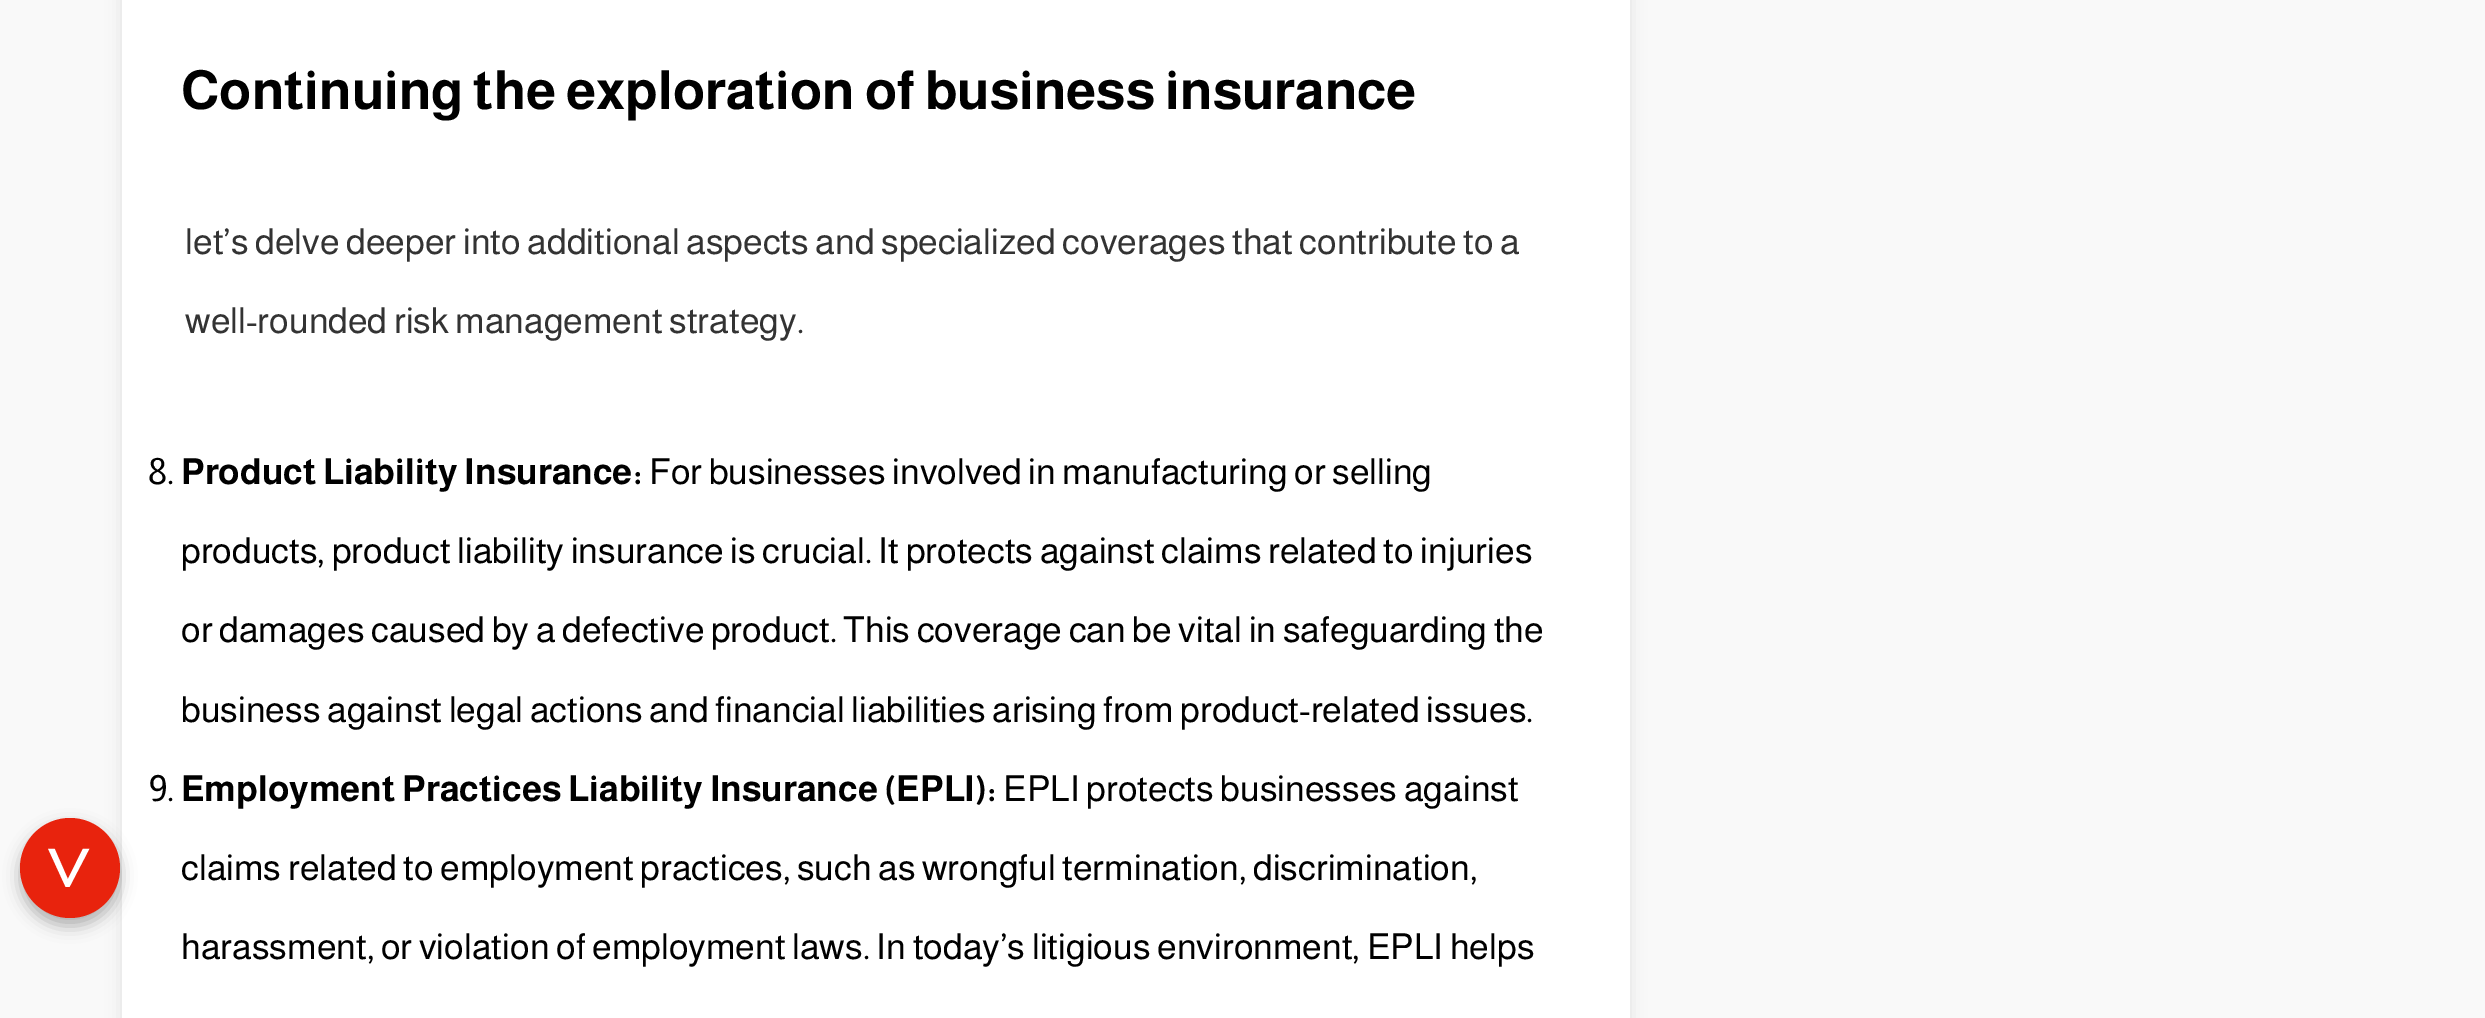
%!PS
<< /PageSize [2485 1018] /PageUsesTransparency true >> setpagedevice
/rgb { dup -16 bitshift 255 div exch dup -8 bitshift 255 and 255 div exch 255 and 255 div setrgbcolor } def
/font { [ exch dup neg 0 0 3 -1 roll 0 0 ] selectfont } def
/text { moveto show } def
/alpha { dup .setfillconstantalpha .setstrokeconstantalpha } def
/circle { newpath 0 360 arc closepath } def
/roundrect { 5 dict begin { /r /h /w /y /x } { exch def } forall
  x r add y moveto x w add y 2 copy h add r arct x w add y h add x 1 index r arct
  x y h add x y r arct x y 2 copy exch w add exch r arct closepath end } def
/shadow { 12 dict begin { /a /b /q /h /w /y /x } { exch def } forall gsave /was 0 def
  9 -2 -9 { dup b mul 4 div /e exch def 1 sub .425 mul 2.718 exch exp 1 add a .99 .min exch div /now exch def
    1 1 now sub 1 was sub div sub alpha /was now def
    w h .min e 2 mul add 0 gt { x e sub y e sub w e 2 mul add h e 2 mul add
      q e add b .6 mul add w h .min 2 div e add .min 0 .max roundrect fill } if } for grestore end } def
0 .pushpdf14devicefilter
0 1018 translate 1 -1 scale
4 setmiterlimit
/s1 { /Almarai-Bold 54 font 16#000000 rgb } def
/s2 { /Almarai-Regular 36 font 16#333333 rgb } def
/s3 { /Almarai-Regular 36 font 16#000000 rgb } def
/s4 { /Almarai-Bold 36 font 16#000000 rgb } def
16#F9F9F9 rgb
0 0 2485 1018 rectfill
16#000000 rgb
122 -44 1508 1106 20 8 0.1 shadow
16#FFFFFF rgb
122 0 1508 1018 rectfill
16#000000 rgb
20 826 100 100 50 8 0.3 shadow
16#E8230D rgb
70 868 50 circle fill
/Almarai-Regular 90 font
16#FFFFFF rgb
gsave 38 845 translate 90 rotate 0 0 moveto (>) show grestore
s1
(Continuing the exploration of business insurance) 181 109 text
s2
(let’s delve deeper into additional aspects and specialized coverages that contribute to a) 185 254 text
(well-rounded risk management strategy.) 185 333 text
s3
(8.) 148 484 text
s4
(Product Liability Insurance:) 181 484 text
s3
(For businesses involved in manufacturing or selling) 649 484 text
(products, product liability insurance is crucial. It protects against claims related to injuries) 181 563 text
(or damages caused by a defective product. This coverage can be vital in safeguarding the) 181 642 text
(business against legal actions and financial liabilities arising from product-related issues.) 181 722 text
(9.) 149 801 text
s4
(Employment Practices Liability Insurance \(EPLI\):) 181 801 text
s3
(EPLI protects businesses against) 1003 801 text
(claims related to employment practices, such as wrongful termination, discrimination,) 181 880 text
(harassment, or violation of employment laws. In today’s litigious environment, EPLI helps) 181 959 text
.poppdf14devicefilter showpage
